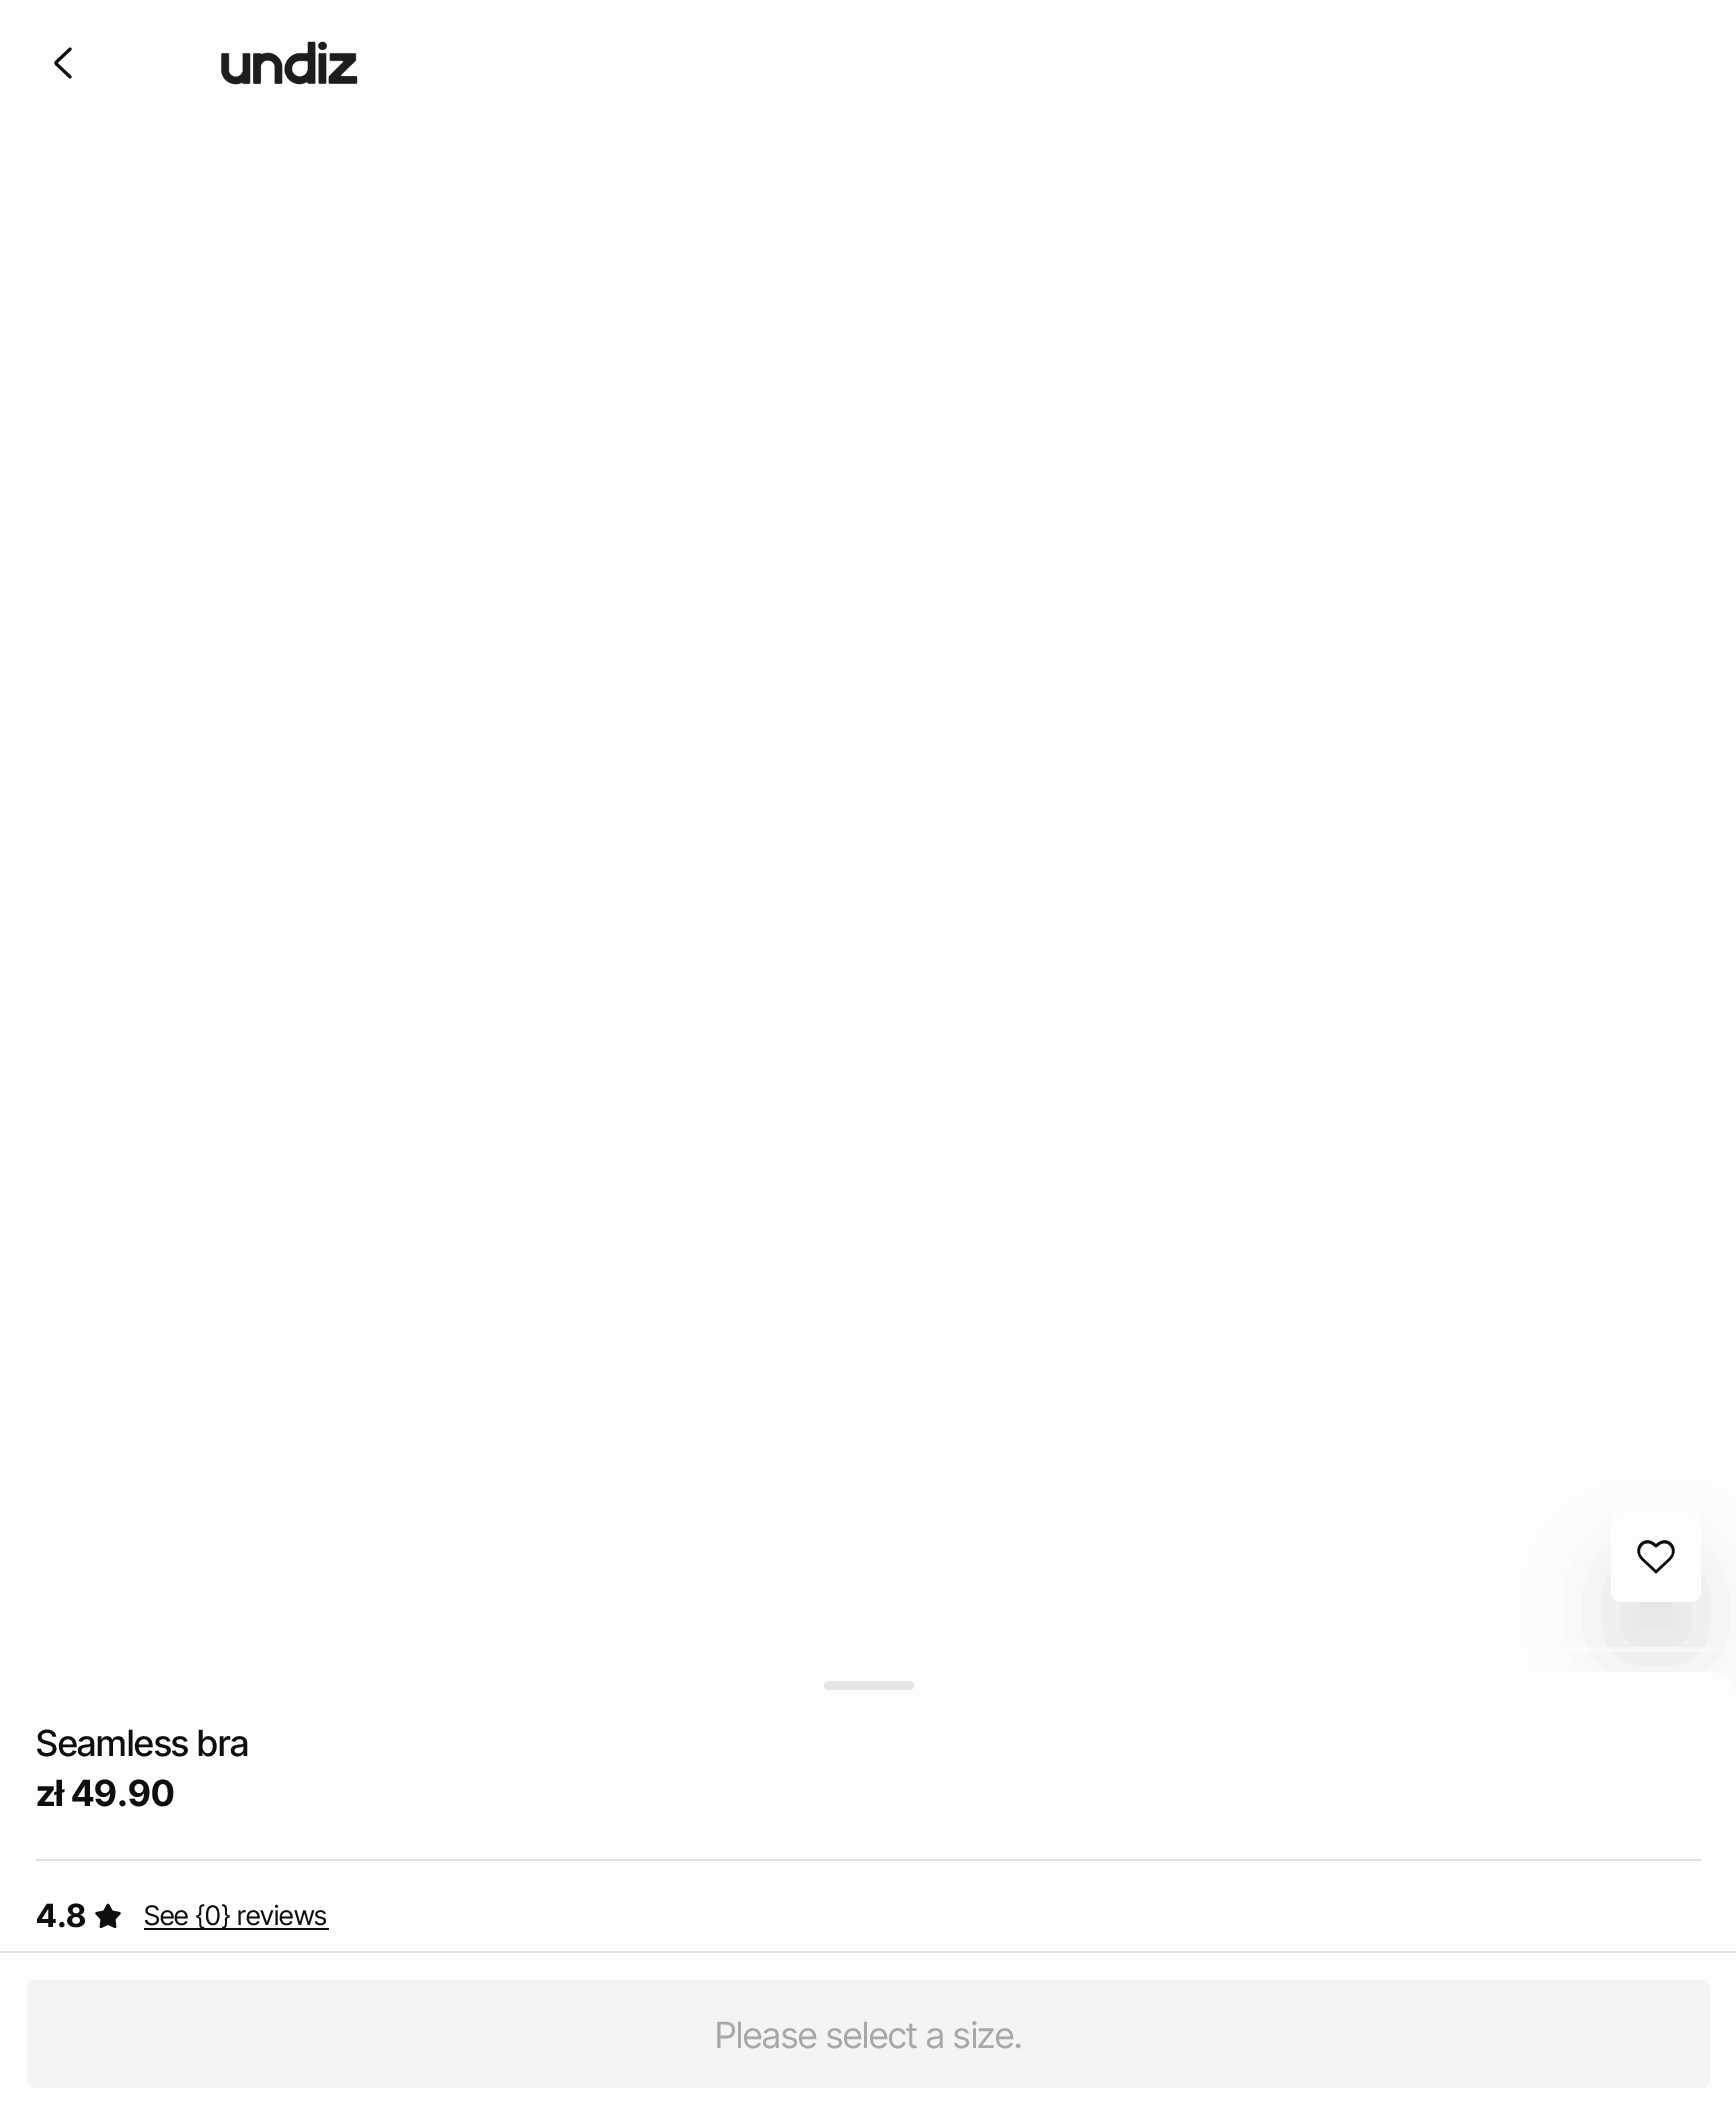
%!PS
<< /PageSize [1736 2114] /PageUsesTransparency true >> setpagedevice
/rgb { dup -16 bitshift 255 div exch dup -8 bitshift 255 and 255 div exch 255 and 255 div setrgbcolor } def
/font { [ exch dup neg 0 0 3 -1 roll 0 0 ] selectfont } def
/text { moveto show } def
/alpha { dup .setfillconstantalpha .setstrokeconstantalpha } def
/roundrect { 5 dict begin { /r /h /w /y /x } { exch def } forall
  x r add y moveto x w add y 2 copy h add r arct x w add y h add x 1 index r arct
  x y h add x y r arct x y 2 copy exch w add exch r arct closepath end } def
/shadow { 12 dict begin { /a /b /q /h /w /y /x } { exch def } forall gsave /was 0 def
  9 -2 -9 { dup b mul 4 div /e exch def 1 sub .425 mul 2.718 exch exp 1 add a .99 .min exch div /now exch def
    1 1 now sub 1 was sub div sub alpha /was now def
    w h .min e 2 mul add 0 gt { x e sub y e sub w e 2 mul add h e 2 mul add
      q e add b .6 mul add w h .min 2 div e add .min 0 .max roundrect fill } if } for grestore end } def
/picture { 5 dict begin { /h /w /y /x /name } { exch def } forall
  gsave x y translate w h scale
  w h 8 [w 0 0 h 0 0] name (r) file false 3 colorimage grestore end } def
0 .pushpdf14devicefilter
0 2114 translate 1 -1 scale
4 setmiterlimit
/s1 { /InterTight-Medium 36 font 16#0E0E0E rgb } def
/s2 { /InterTight-Bold 36 font 16#0E0E0E rgb } def
/s3 { /InterTight-Bold 32 font 16#0E0E0E rgb } def
/s4 { /InterTight-Regular 27 font 16#0E0E0E rgb } def
/s5 { /InterTight-Regular 36 font 16#A8A8A8 rgb } def
16#FDFDFD rgb
0 0 1736 2114 rectfill
(pic1.raw) 54 47 18 32 picture
(pic2.raw) 221 41 137 44 picture
16#000000 rgb
1611 1566 90 90 9 38 0.1 shadow
16#FDFDFD rgb
1611 1512 90 90 9 roundrect fill
(pic3.raw) 1637 1540 38 34 picture
0.5 alpha
1301 1647 418 5 2.5 roundrect fill
1 alpha
27 1672 moveto 1710 1672 lineto 1725 1672 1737 1684 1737 1699 curveto 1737 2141 lineto 0 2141 lineto 0 1699 lineto 0 1684 12 1672 27 1672 curveto closepath fill
16#E5E5E5 rgb
824 1681 90 9 4.5 roundrect fill
s1
(Seamless bra) 36 1756 text
s2
(zł 49.90) 36 1806 text
16#E0E0E0 rgb
36 1859 1665 2 rectfill
s3
(4.8) 36 1927 text
(pic4.raw) 95 1903 26 25 picture
s4
(See {0} reviews) 144 1925 text
144 1928 185 2 rectfill
16#E0E0E0 rgb
0 1951 1736 2 rectfill
16#F4F4F4 rgb
27 1980 1683 108 9 roundrect fill
s5
(Please select a size.) 715 2048 text
.poppdf14devicefilter showpage
